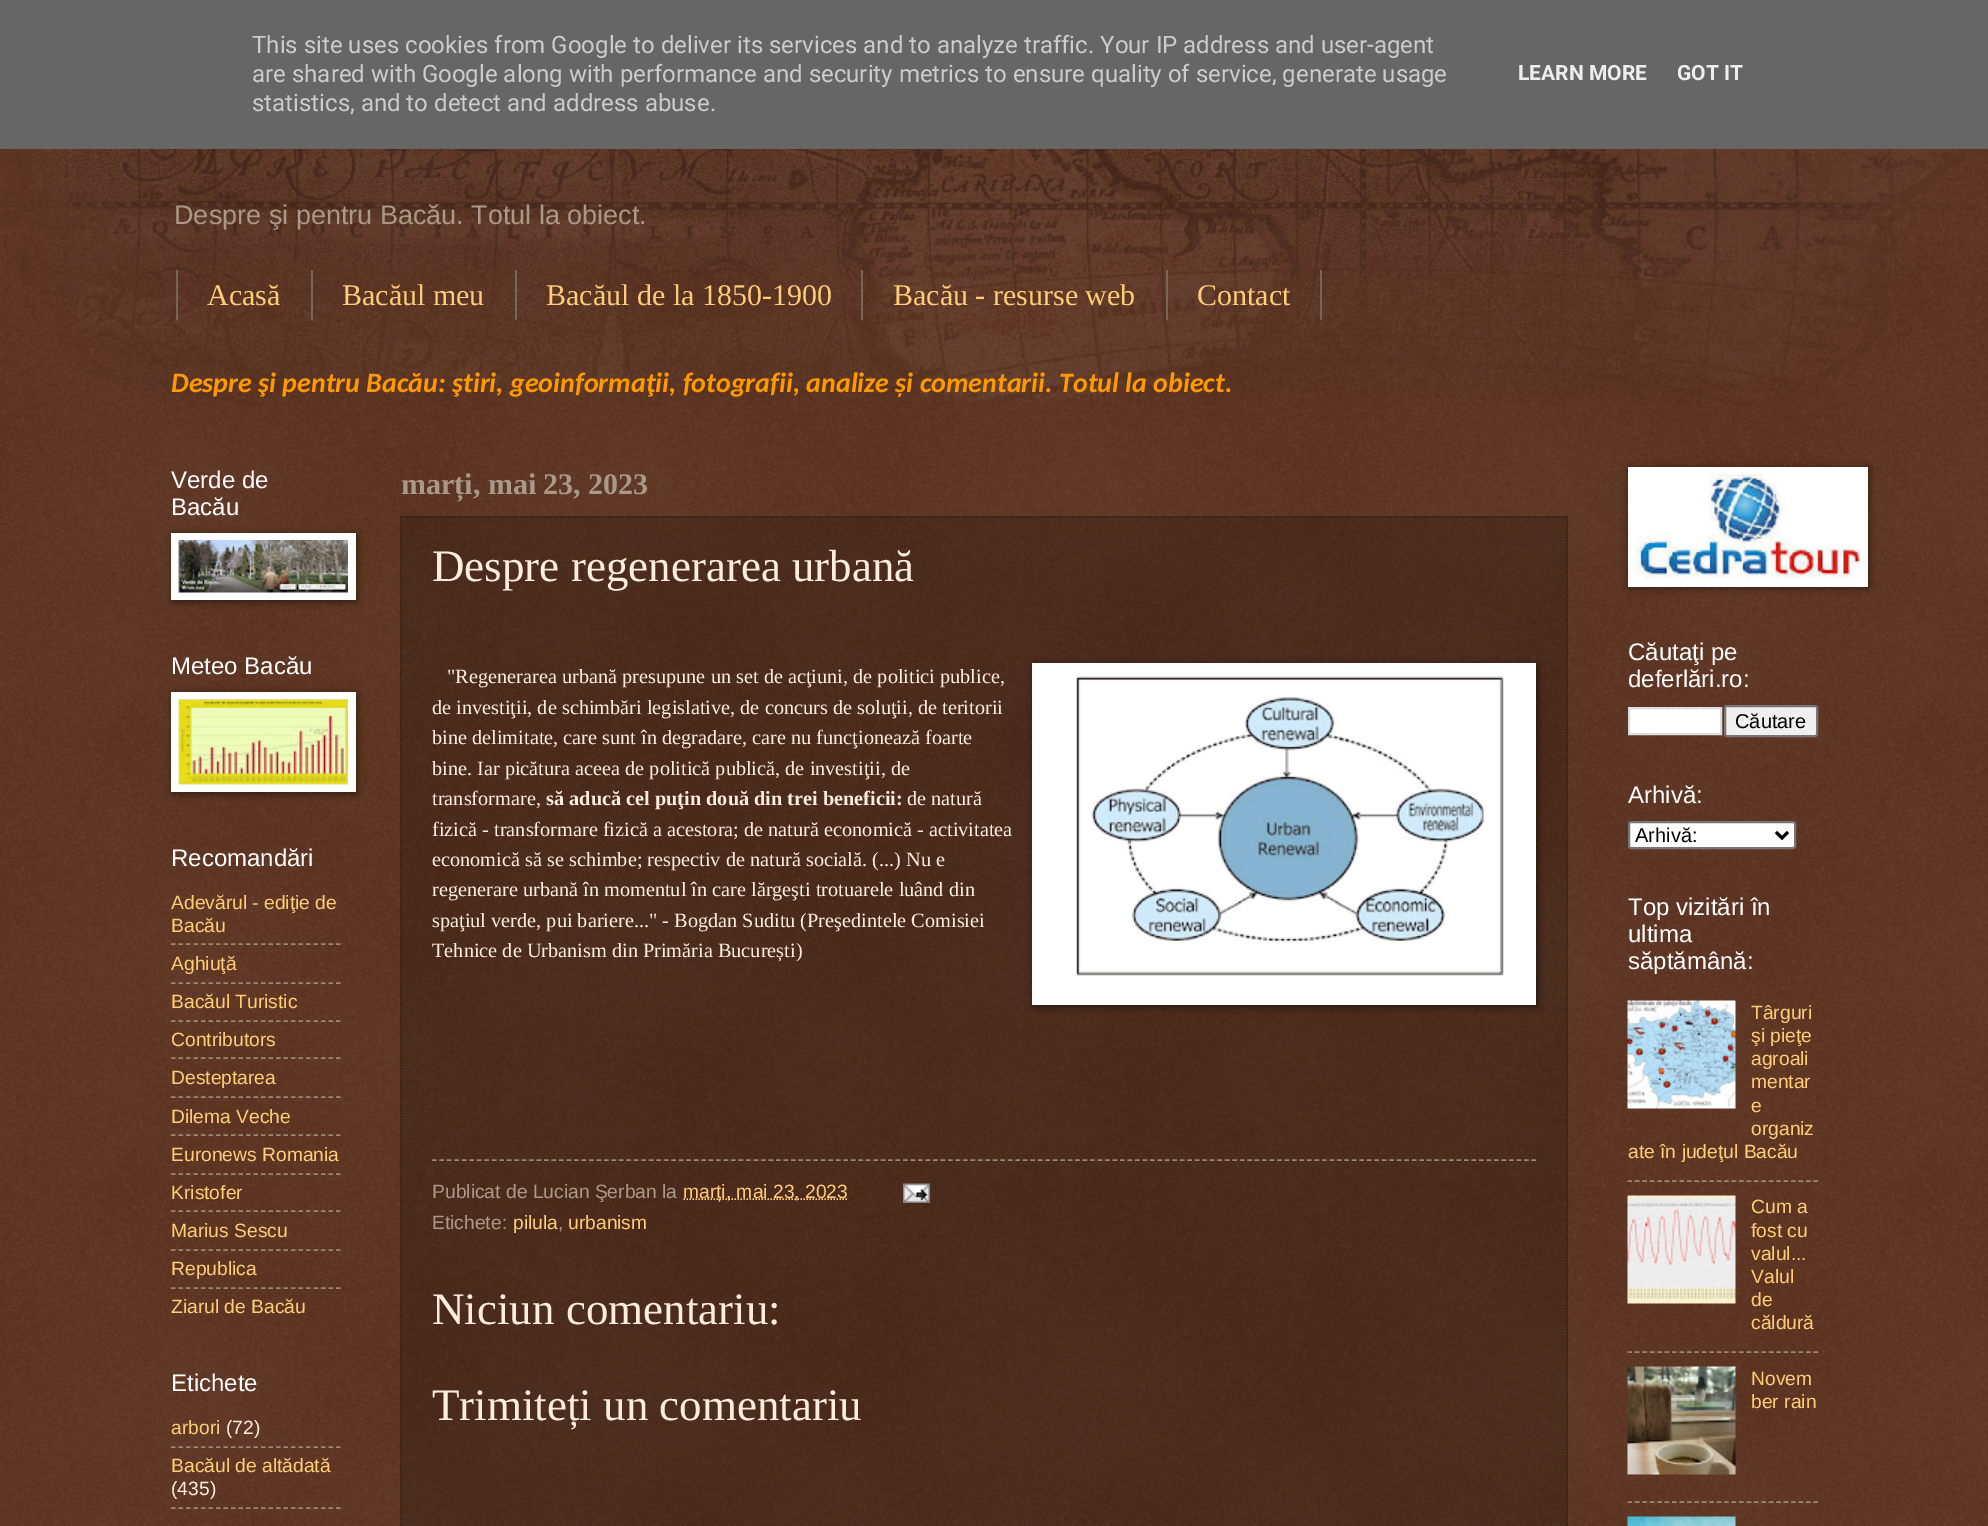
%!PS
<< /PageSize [1988 1526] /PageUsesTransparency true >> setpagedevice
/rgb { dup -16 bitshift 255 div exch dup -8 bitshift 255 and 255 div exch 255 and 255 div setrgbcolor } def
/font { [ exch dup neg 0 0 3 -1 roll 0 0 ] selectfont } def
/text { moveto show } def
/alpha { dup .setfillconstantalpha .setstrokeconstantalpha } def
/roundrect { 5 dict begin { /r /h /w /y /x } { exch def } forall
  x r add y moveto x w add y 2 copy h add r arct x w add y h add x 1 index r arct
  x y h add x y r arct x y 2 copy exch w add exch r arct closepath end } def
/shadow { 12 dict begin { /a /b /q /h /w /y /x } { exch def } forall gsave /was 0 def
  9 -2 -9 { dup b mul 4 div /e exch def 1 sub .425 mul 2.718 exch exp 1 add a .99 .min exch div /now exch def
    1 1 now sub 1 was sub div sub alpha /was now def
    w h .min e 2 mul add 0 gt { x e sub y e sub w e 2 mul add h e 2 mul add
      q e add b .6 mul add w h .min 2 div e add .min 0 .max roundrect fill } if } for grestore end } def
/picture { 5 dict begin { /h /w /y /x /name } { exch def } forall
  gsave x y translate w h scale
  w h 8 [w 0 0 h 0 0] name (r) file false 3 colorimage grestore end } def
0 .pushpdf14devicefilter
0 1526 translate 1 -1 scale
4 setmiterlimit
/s1 { /Roboto-Regular 24 font 16#CCCCCC rgb } def
/s2 { /Roboto-Bold 21 font 16#EEEEEE rgb } def
/s3 { /LiberationSans-Regular 27 font 16#AA9988 rgb } def
/s4 { /LiberationSerif-Regular 30 font 16#FFCC77 rgb } def
/s5 { /Carlito-BoldItalic 28 font 16#FF9900 rgb } def
/s6 { /Arimo-Regular 24 font 16#FFFFFF rgb } def
/s7 { /LiberationSans-Regular 19.25 font 16#FFCC77 rgb } def
/s8 { /LiberationSans-Regular 19.25 font 16#FFEEDD rgb } def
/s9 { /LiberationSerif-Bold 30 font 16#AA9988 rgb } def
/s10 { /LiberationSerif-Regular 45 font 16#FFEEDD rgb } def
/s11 { /LiberationSerif-Regular 20.3 font 16#FFEEDD rgb } def
/s12 { /LiberationSerif-Bold 20.3 font 16#FFEEDD rgb } def
/s13 { /LiberationSans-Regular 19.25 font 16#AA9988 rgb } def
/s14 { /LiberationSans-Regular 20 font 16#000000 rgb } def
16#441500 rgb
0 0 1988 1526 rectfill
(pic1.raw) 0 149 1988 1377 picture
16#666666 rgb
0 0 1988 149 rectfill
s1
(This site uses cookies from Google to deliver its services and to analyze traffic. Your IP address and user-agent) 252 53 text
(are shared with Google along with performance and security metrics to ensure quality of service, generate usage) 252 82 text
(statistics, and to detect and address abuse.) 252 111 text
s2
(LEARN MORE) 1518 80 text
(GOT IT) 1677 80 text
(pic2.raw) 0 149 1988 256 picture
s3
(Despre şi pentru Bacău. Totul la obiect.) 174 224 text
16#776655 rgb
311 270 2 50 rectfill
176 270 2 50 rectfill
s4
(Acasă) 207 305 text
16#776655 rgb
515 270 2 50 rectfill
s4
(Bacăul meu) 342 305 text
16#776655 rgb
861 270 2 50 rectfill
s4
(Bacăul de la 1850-1900) 546 305 text
16#776655 rgb
1166 270 2 50 rectfill
s4
(Bacău - resurse web) 893 305 text
16#776655 rgb
1320 270 2 50 rectfill
s4
(Contact) 1197 305 text
s5
(Despre şi pentru Bacău: ştiri, geoinformaţii, fotografii, analize și comentarii. Totul la obiect.) 171 392 text
s6
(Verde de) 171 488 text
(Bacău) 171 515 text
16#000000 rgb
173 534 184 68 0 4 0.5 shadow
16#FFFFFF rgb
171 533 185 67 rectfill
(pic3.raw) 178 540 170 53 picture
(Meteo Bacău) 171 674 text
16#000000 rgb
173 693 184 101 0 4 0.5 shadow
16#FFFFFF rgb
171 692 185 100 rectfill
(pic4.raw) 178 699 170 86 picture
(Recomandări) 171 866 text
s7
(Adevărul - ediţie de) 171 909 text
(Bacău) 171 932 text
16#998877 rgb
1.5 setlinewidth
[4.5 3] 0 setdash
171 944 moveto 340.5 944 lineto stroke
s7
(Aghiuţă) 171 970 text
16#998877 rgb
171 983 moveto 340.5 983 lineto stroke
s7
(Bacăul Turistic) 171 1008 text
16#998877 rgb
171 1021 moveto 340.5 1021 lineto stroke
s7
(Contributors) 171 1046 text
16#998877 rgb
171 1058 moveto 340.5 1058 lineto stroke
s7
(Desteptarea) 171 1084 text
16#998877 rgb
171 1097 moveto 340.5 1097 lineto stroke
s7
(Dilema Veche) 171 1123 text
16#998877 rgb
171 1135 moveto 340.5 1135 lineto stroke
s7
(Euronews Romania) 171 1161 text
16#998877 rgb
171 1174 moveto 340.5 1174 lineto stroke
s7
(Kristofer) 171 1199 text
16#998877 rgb
171 1211 moveto 340.5 1211 lineto stroke
s7
(Marius Sescu) 171 1237 text
16#998877 rgb
171 1250 moveto 340.5 1250 lineto stroke
s7
(Republica) 171 1275 text
16#998877 rgb
171 1288 moveto 340.5 1288 lineto stroke
s7
(Ziarul de Bacău) 171 1313 text
s6
(Etichete) 171 1391 text
s7
(arbori) 171 1434 text
s8
(\(72\)) 226 1434 text
16#998877 rgb
171 1447 moveto 340.5 1447 lineto stroke
s7
(Bacăul de altădată) 171 1472 text
s8
(\(435\)) 171 1495 text
16#998877 rgb
171 1508 moveto 340.5 1508 lineto stroke
s9
(marți, mai 23, 2023) 401 494 text
0.2 alpha
16#000000 rgb
400 516 1168 1010 rectfill
1 alpha
16#332211 rgb
[1.5 1.5] 0 setdash
400.5 517 moveto 1567.5 517 lineto stroke
1567 516 moveto 1567 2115 lineto stroke
401 516 moveto 401 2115 lineto stroke
s10
(Despre regenerarea urbană) 432 581 text
s11
("Regenerarea urbană presupune un set de acţiuni, de politici publice,) 447 683 text
16#000000 rgb
1034 665 504 342 0 4 0.5 shadow
16#FFFFFF rgb
1032 663 504 342 rectfill
(pic5.raw) 1076 676 428 300 picture
s11
(de investiţii, de schimbări legislative, de concurs de soluţii, de teritorii) 432 714 text
(bine delimitate, care sunt în degradare, care nu funcţionează foarte) 432 744 text
(bine. Iar picătura aceea de politică publică, de investiţii, de) 432 775 text
(transformare,) 432 805 text
s12
(să aducă cel puţin două din trei beneficii:) 546 805 text
s11
(de natură) 907 805 text
(fizică - transformare fizică a acestora; de natură economică - activitatea) 432 836 text
(economică să se schimbe; respectiv de natură socială. \(...\) Nu e) 432 866 text
(regenerare urbană în momentul în care lărgeşti trotuarele luând din) 432 896 text
(spaţiul verde, pui bariere..." - Bogdan Suditu \(Preşedintele Comisiei) 432 927 text
(Tehnice de Urbanism din Primăria București\)) 432 957 text
16#998877 rgb
[4.5 2.98] 0 setdash
432 1160 moveto 1536 1160 lineto stroke
s13
(Publicat de Lucian Şerban la) 432 1198 text
16#FFCC77 rgb
[1.5 1.5] 0 setdash
683.5 1199 moveto 848.5 1199 lineto stroke
(marți, mai 23, 2023) 683 1198 text
(pic6.raw) 903 1183 27 20 picture
s13
(Etichete:) 432 1229 text
s7
(pilula) 513 1229 text
s13
(,) 558 1229 text
s7
(urbanism) 568 1229 text
s10
(Niciun comentariu:) 432 1324 text
(Trimiteți un comentariu) 432 1420 text
16#000000 rgb
1629 468 240 120 0 4 0.5 shadow
16#FFFFFF rgb
1628 467 240 120 rectfill
(pic7.raw) 1635 474 225 105 picture
s6
(Căutaţi pe) 1628 660 text
(deferlări.ro:) 1628 687 text
1629 708 moveto 1721 708 lineto 1721 734 lineto 1629 734 lineto closepath gsave fill grestore
16#DDDDDD rgb
2 setlinewidth
[] 0 setdash
stroke
16#EFEFEF rgb
1725 706 92 30 2 roundrect gsave fill grestore
16#767676 rgb
stroke
s14
(Căutare) 1735 728 text
s6
(Arhivă:) 1628 803 text
1629 822 166 26 2 roundrect gsave fill grestore
16#767676 rgb
stroke
16#000000 rgb
3 setlinewidth
1776 832 moveto 1782 838 lineto 1788 832 lineto stroke
s14
(Arhivă:) 1635 842 text
s6
(Top vizitări în) 1628 915 text
(ultima) 1628 942 text
(săptămână:) 1628 969 text
(pic8.raw) 1627 1000 109 109 picture
s7
(Târguri) 1751 1019 text
(şi pieţe) 1751 1042 text
(agroali) 1751 1065 text
(mentar) 1751 1088 text
(e) 1751 1112 text
(organiz) 1751 1135 text
(ate în judeţul Bacău) 1628 1158 text
16#998877 rgb
1.5 setlinewidth
[4.5 2.94] 0 setdash
1627.5 1181 moveto 1818 1181 lineto stroke
(pic9.raw) 1627 1195 109 109 picture
s7
(Cum a) 1751 1213 text
(fost cu) 1751 1237 text
(valul...) 1751 1260 text
(Valul) 1751 1283 text
(de) 1751 1306 text
(căldură) 1751 1329 text
16#998877 rgb
1627.5 1352 moveto 1818 1352 lineto stroke
(pic10.raw) 1627 1366 109 109 picture
s7
(Novem) 1751 1385 text
(ber rain) 1751 1408 text
16#998877 rgb
1627.5 1502 moveto 1818 1502 lineto stroke
(pic11.raw) 1627 1516 109 10 picture
.poppdf14devicefilter showpage
